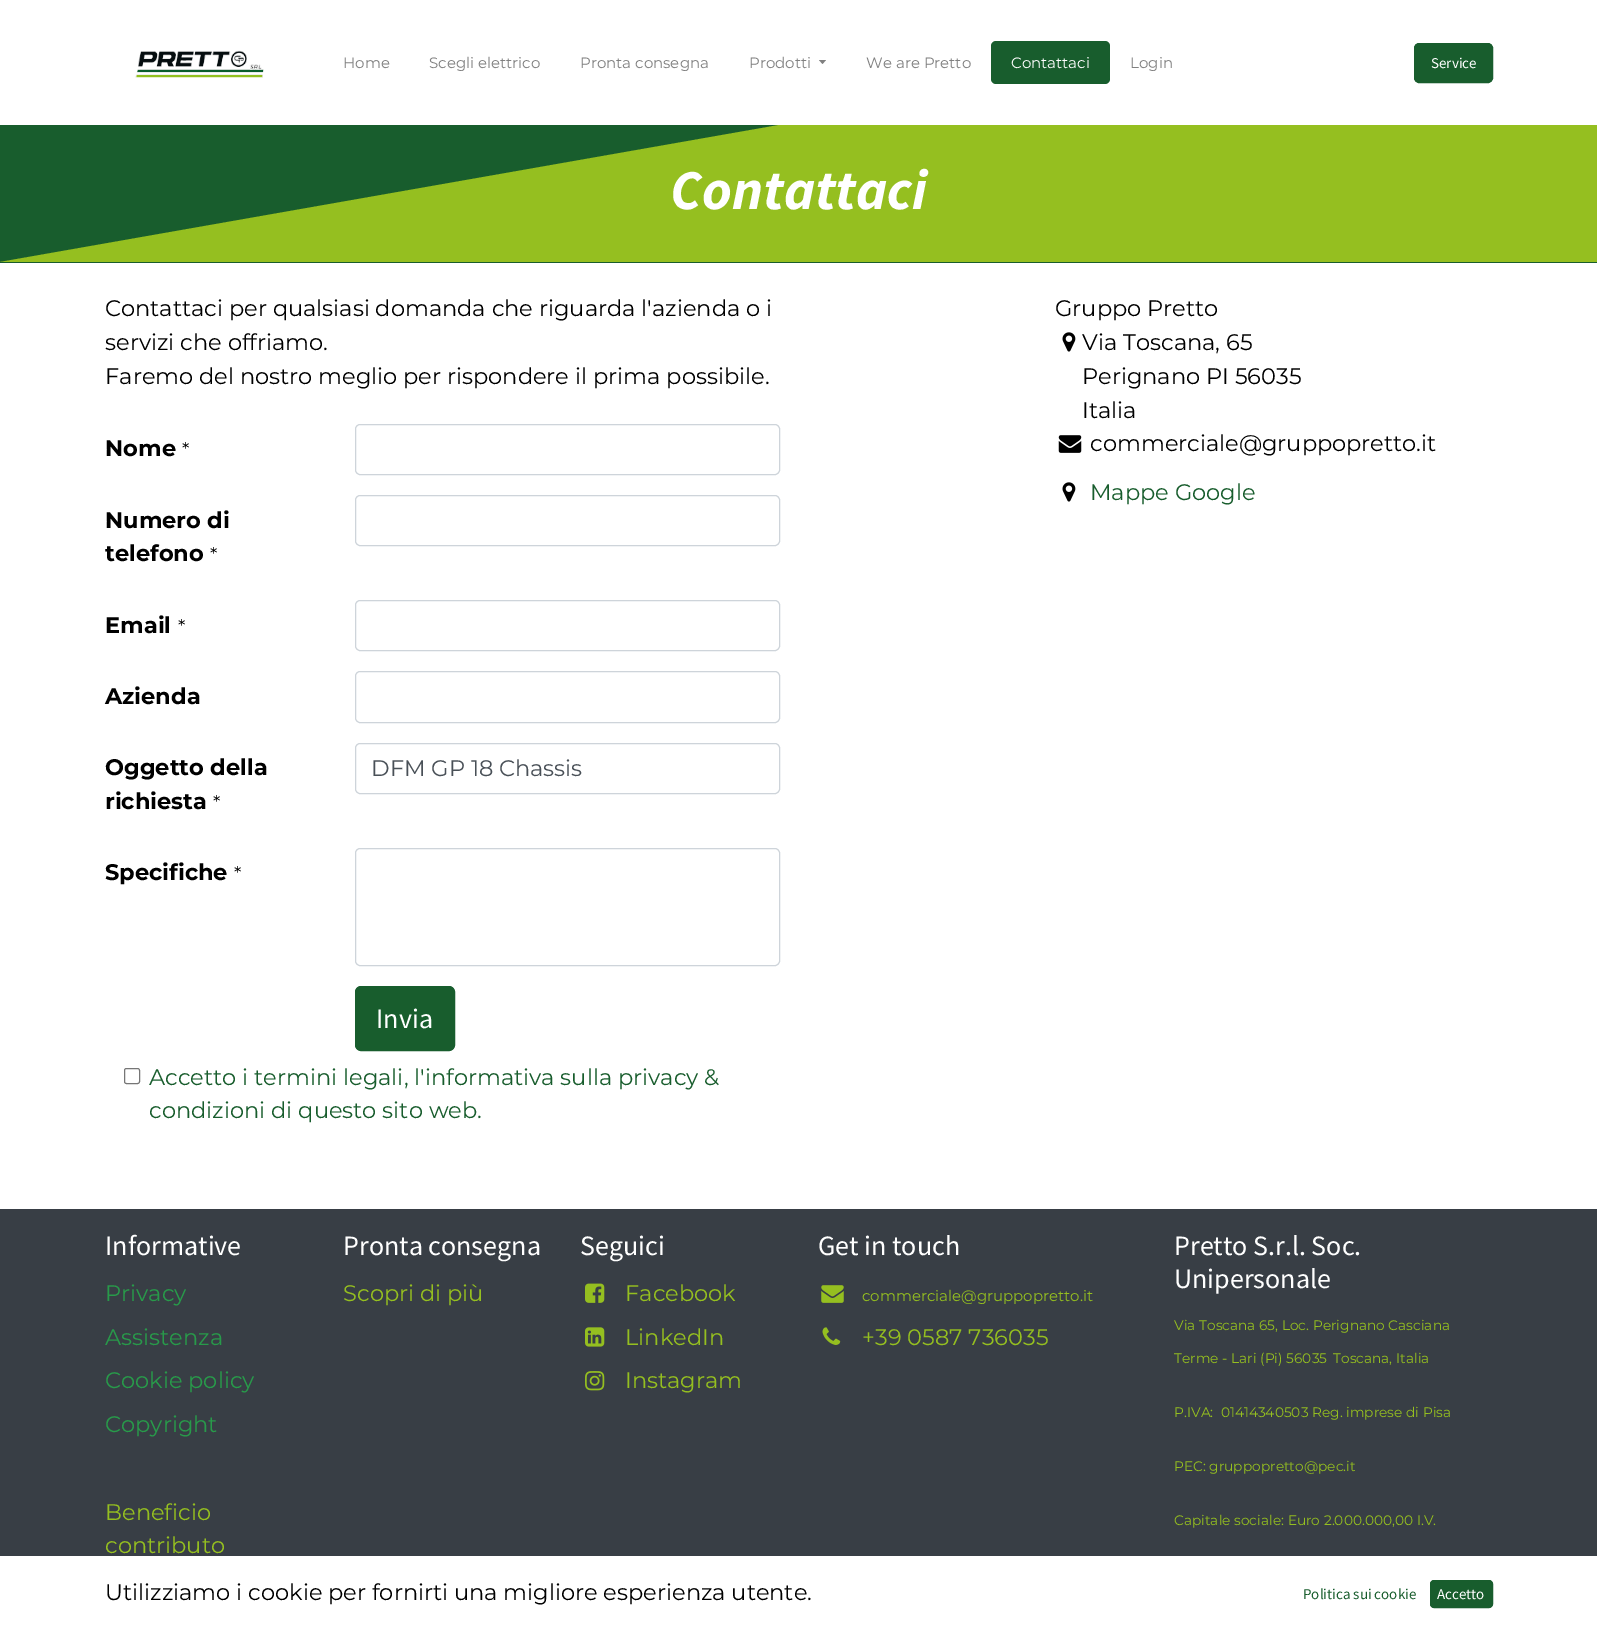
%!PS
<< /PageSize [1597 1630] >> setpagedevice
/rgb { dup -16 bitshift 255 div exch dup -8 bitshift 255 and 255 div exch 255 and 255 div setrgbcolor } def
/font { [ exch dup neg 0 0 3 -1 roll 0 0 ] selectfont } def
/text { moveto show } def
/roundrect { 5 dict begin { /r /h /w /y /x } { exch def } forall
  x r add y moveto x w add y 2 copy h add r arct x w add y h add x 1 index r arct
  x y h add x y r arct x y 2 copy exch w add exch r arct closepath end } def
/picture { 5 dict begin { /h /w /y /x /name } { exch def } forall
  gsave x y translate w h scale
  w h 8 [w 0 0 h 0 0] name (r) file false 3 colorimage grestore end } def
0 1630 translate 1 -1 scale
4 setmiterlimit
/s1 { /Montserrat-Regular 15 font 16#808080 rgb } def
/s2 { /Montserrat-Regular 15 font 16#FFFFFF rgb } def
/s3 { /SourceSansPro-Regular 15 font 16#FFFFFF rgb } def
/s4 { /SourceSansPro-BoldItalic 56.25 font 16#FFFFFF rgb } def
/s5 { /Montserrat-Regular 22.5 font 16#000000 rgb } def
/s6 { /Montserrat-Bold 22.5 font 16#000000 rgb } def
/s7 { /Montserrat-Regular 19 font 16#000000 rgb } def
/s8 { /Montserrat-Regular 22.5 font 16#495057 rgb } def
/s9 { /SourceSansPro-Regular 28 font 16#FFFFFF rgb } def
/s10 { /Montserrat-Regular 22.5 font 16#185D2D rgb } def
/s11 { /Montserrat-Regular 22.5 font 16#289A4A rgb } def
/s12 { /Montserrat-Regular 22.5 font 16#95BF20 rgb } def
/s13 { /Montserrat-Regular 15 font 16#95BF20 rgb } def
/s14 { /Montserrat-Regular 13.75 font 16#95BF20 rgb } def
/s15 { /SourceSansPro-Regular 15 font 16#185D2D rgb } def
16#FFFFFF rgb
0 0 1597 1630 rectfill
(pic1.raw) 135 50 129 28 picture
s1
(Home) 343 68 text
(Scegli elettrico) 429 68 text
(Pronta consegna) 580 68 text
(Prodotti) 749 68 text
819 60 moveto 826 60 lineto 822.5 64 lineto closepath fill
(We are Pretto) 866 68 text
16#185D2D rgb
991 41 119 43 5 roundrect fill
s2
(Contattaci) 1011 68 text
s1
(Login) 1130 68 text
16#185D2D rgb
1414.5 43.5 78 39 4.5 roundrect gsave fill grestore
stroke
s3
(Service) 1431 68 text
16#185D2D rgb
0 125 1597 138 rectfill
gsave
0 125 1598 138 rectclip
16#95BF20 rgb
0 262 moveto 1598 -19 lineto 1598 262 lineto closepath fill
grestore
s4
(Contattaci) 670 209 text
s5
(Contattaci per qualsiasi domanda che riguarda l'azienda o i) 105 316 text
(servizi che offriamo.) 105 350 text
(Faremo del nostro meglio per rispondere il prima possibile.) 105 384 text
s6
(Nome) 105 456 text
s7
(*) 182 456 text
16#CED4DA rgb
355.5 424.5 424 50 4.5 roundrect stroke
s6
(Numero di) 105 528 text
(telefono) 105 561 text
s7
(*) 210 561 text
16#CED4DA rgb
355.5 495.5 424 50 4.5 roundrect stroke
s6
(Email) 105 633 text
s7
(*) 178 633 text
16#CED4DA rgb
355.5 600.5 424 50 4.5 roundrect stroke
s6
(Azienda) 105 704 text
16#CED4DA rgb
355.5 671.5 424 51 4.5 roundrect stroke
s6
(Oggetto della) 105 775 text
(richiesta) 105 809 text
s7
(*) 213 809 text
16#CED4DA rgb
355.5 743.5 424 50 4.5 roundrect stroke
s8
(DFM GP 18 Chassis) 371 776 text
s6
(Specifiche) 105 880 text
s7
(*) 234 880 text
16#CED4DA rgb
355.5 848.5 424 117 4.5 roundrect stroke
16#185D2D rgb
355.5 986.5 99 64 5.5 roundrect gsave fill grestore
stroke
s9
(Invia) 376 1028 text
16#767676 rgb
124.5 1068.5 15 15 2 roundrect stroke
s10
(Accetto i termini legali, l'informativa sulla privacy &) 149 1085 text
(condizioni di questo sito web.) 149 1118 text
s5
(Gruppo Pretto) 1055 316 text
(pic2.raw) 1062 332 14 20 picture
(Via Toscana, 65) 1082 350 text
(Perignano PI 56035) 1082 384 text
(Italia) 1082 418 text
(pic3.raw) 1058 435 24 18 picture
(commerciale@gruppopretto.it) 1090 451 text
(pic2.raw) 1062 482 14 20 picture
s10
(Mappe Google) 1090 500 text
16#383E45 rgb
0 1209 1597 347 rectfill
s9
(Informative) 105 1255 text
s11
(Privacy) 105 1301 text
(Assistenza) 105 1345 text
(Cookie policy) 105 1388 text
(Copyright) 105 1432 text
s12
(Beneficio) 105 1520 text
(contributo) 105 1553 text
s9
(Pronta consegna) 343 1255 text
s12
(Scopri di più) 343 1301 text
s9
(Seguici) 580 1255 text
(pic4.raw) 585 1283 20 20 picture
s12
(Facebook) 625 1301 text
(pic5.raw) 585 1327 20 20 picture
(LinkedIn) 625 1345 text
(pic6.raw) 585 1371 20 20 picture
(Instagram) 625 1388 text
s9
(Get in touch) 818 1255 text
(pic7.raw) 821 1285 23 18 picture
s13
(commerciale@gruppopretto.it) 862 1301 text
(pic8.raw) 822 1327 19 18 picture
s12
(+39 0587 736035) 862 1345 text
s9
(Pretto S.r.l. Soc.) 1174 1255 text
(Unipersonale) 1174 1288 text
s14
(Via Toscana 65, Loc. Perignano Casciana) 1174 1330 text
(Terme - Lari \(Pi\) 56035) 1174 1363 text
(Toscana, Italia) 1333 1363 text
(P.IVA:  01414340503 Reg. imprese di Pisa) 1174 1417 text
(PEC: gruppopretto@pec.it) 1174 1471 text
(Capitale sociale: Euro 2.000.000,00 I.V.) 1174 1525 text
s5
(Utilizziamo i cookie per fornirti una migliore esperienza utente.) 105 1600 text
s15
(Politica sui cookie) 1303 1599 text
1430.5 1580.5 62 27 3.5 roundrect gsave fill grestore
stroke
s3
(Accetto) 1437 1599 text
showpage
